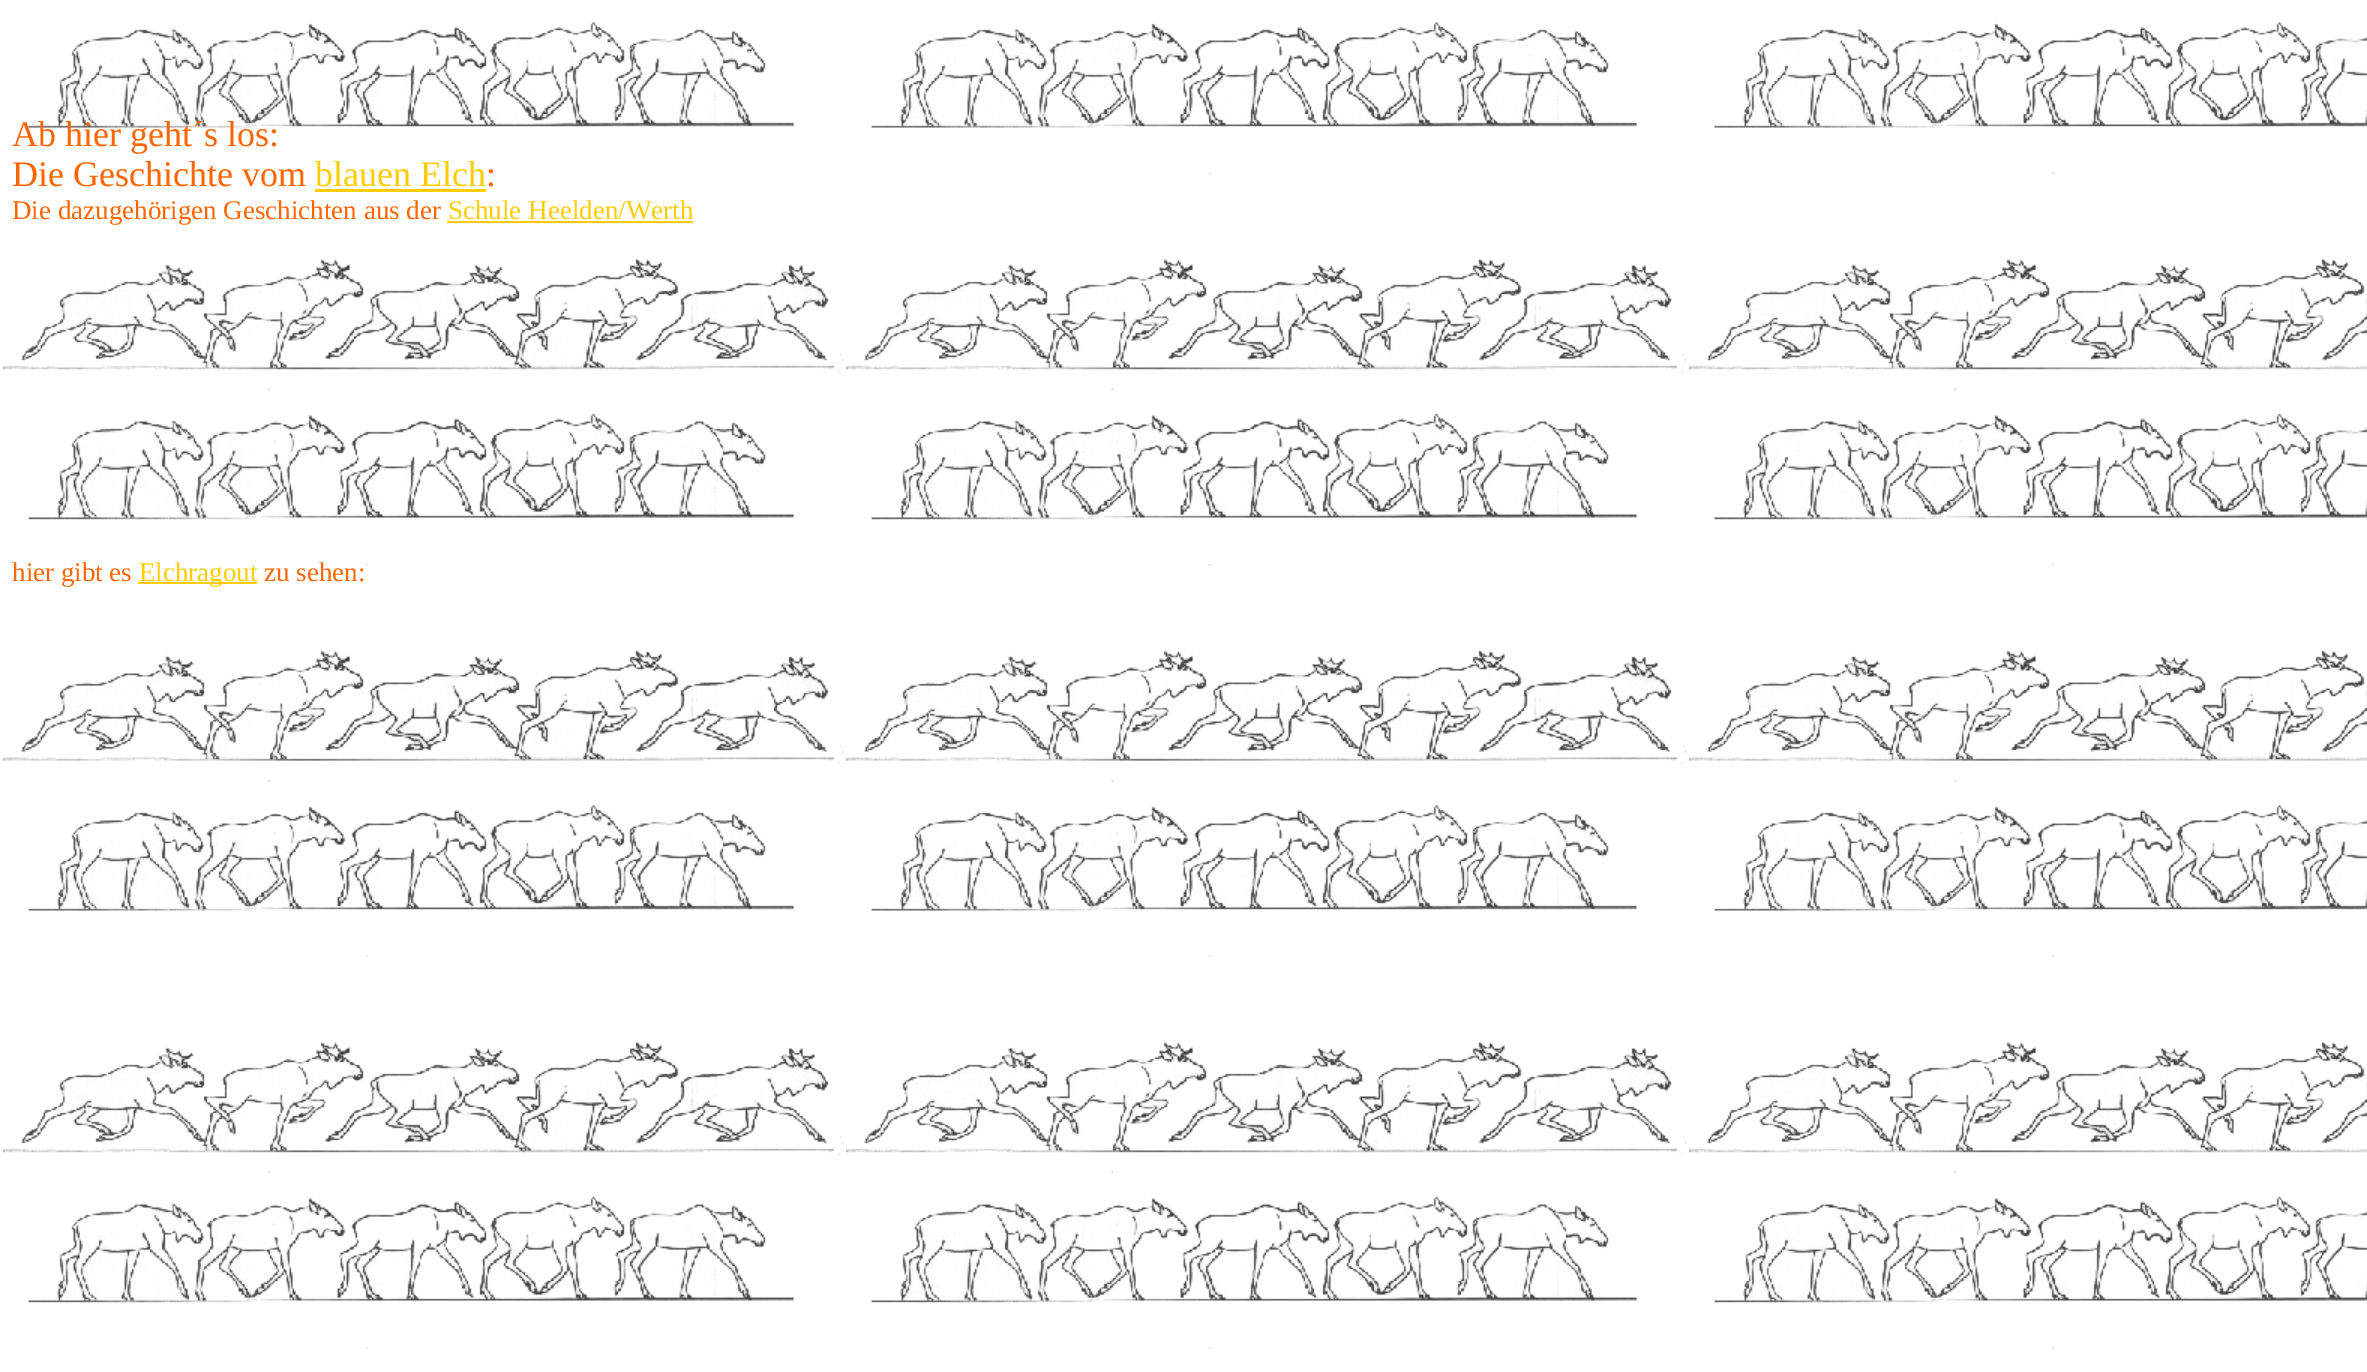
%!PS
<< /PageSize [2367 1372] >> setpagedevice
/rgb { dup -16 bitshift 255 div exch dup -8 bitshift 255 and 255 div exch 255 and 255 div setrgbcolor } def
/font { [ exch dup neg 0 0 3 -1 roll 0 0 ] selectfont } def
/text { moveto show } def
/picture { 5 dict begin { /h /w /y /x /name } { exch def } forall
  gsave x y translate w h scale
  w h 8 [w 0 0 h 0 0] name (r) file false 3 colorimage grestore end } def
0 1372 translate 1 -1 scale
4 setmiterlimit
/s1 { /LiberationSerif-Regular 36 font 16#FF6600 rgb } def
/s2 { /LiberationSerif-Regular 36 font 16#FFCC00 rgb } def
/s3 { /LiberationSerif-Regular 27 font 16#FF6600 rgb } def
/s4 { /LiberationSerif-Regular 27 font 16#FFCC00 rgb } def
16#FFFFFF rgb
0 0 2367 1372 rectfill
(pic1.raw) 0 0 2367 1372 picture
s1
(Ab hier geht´s los:) 12 146 text
(Die Geschichte vom) 12 186 text
s2
(blauen Elch) 315 186 text
s1
(:) 486 186 text
16#FFCC00 rgb
315 189 171 3 rectfill
s3
(Die dazugehörigen Geschichten aus der) 12 219 text
s4
(Schule Heelden/Werth) 448 219 text
447 221 246 2 rectfill
s3
(hier gibt es) 12 581 text
16#FFCC00 rgb
138 582 119 2 rectfill
(Elchragout) 139 581 text
s3
(zu sehen:) 264 581 text
showpage
